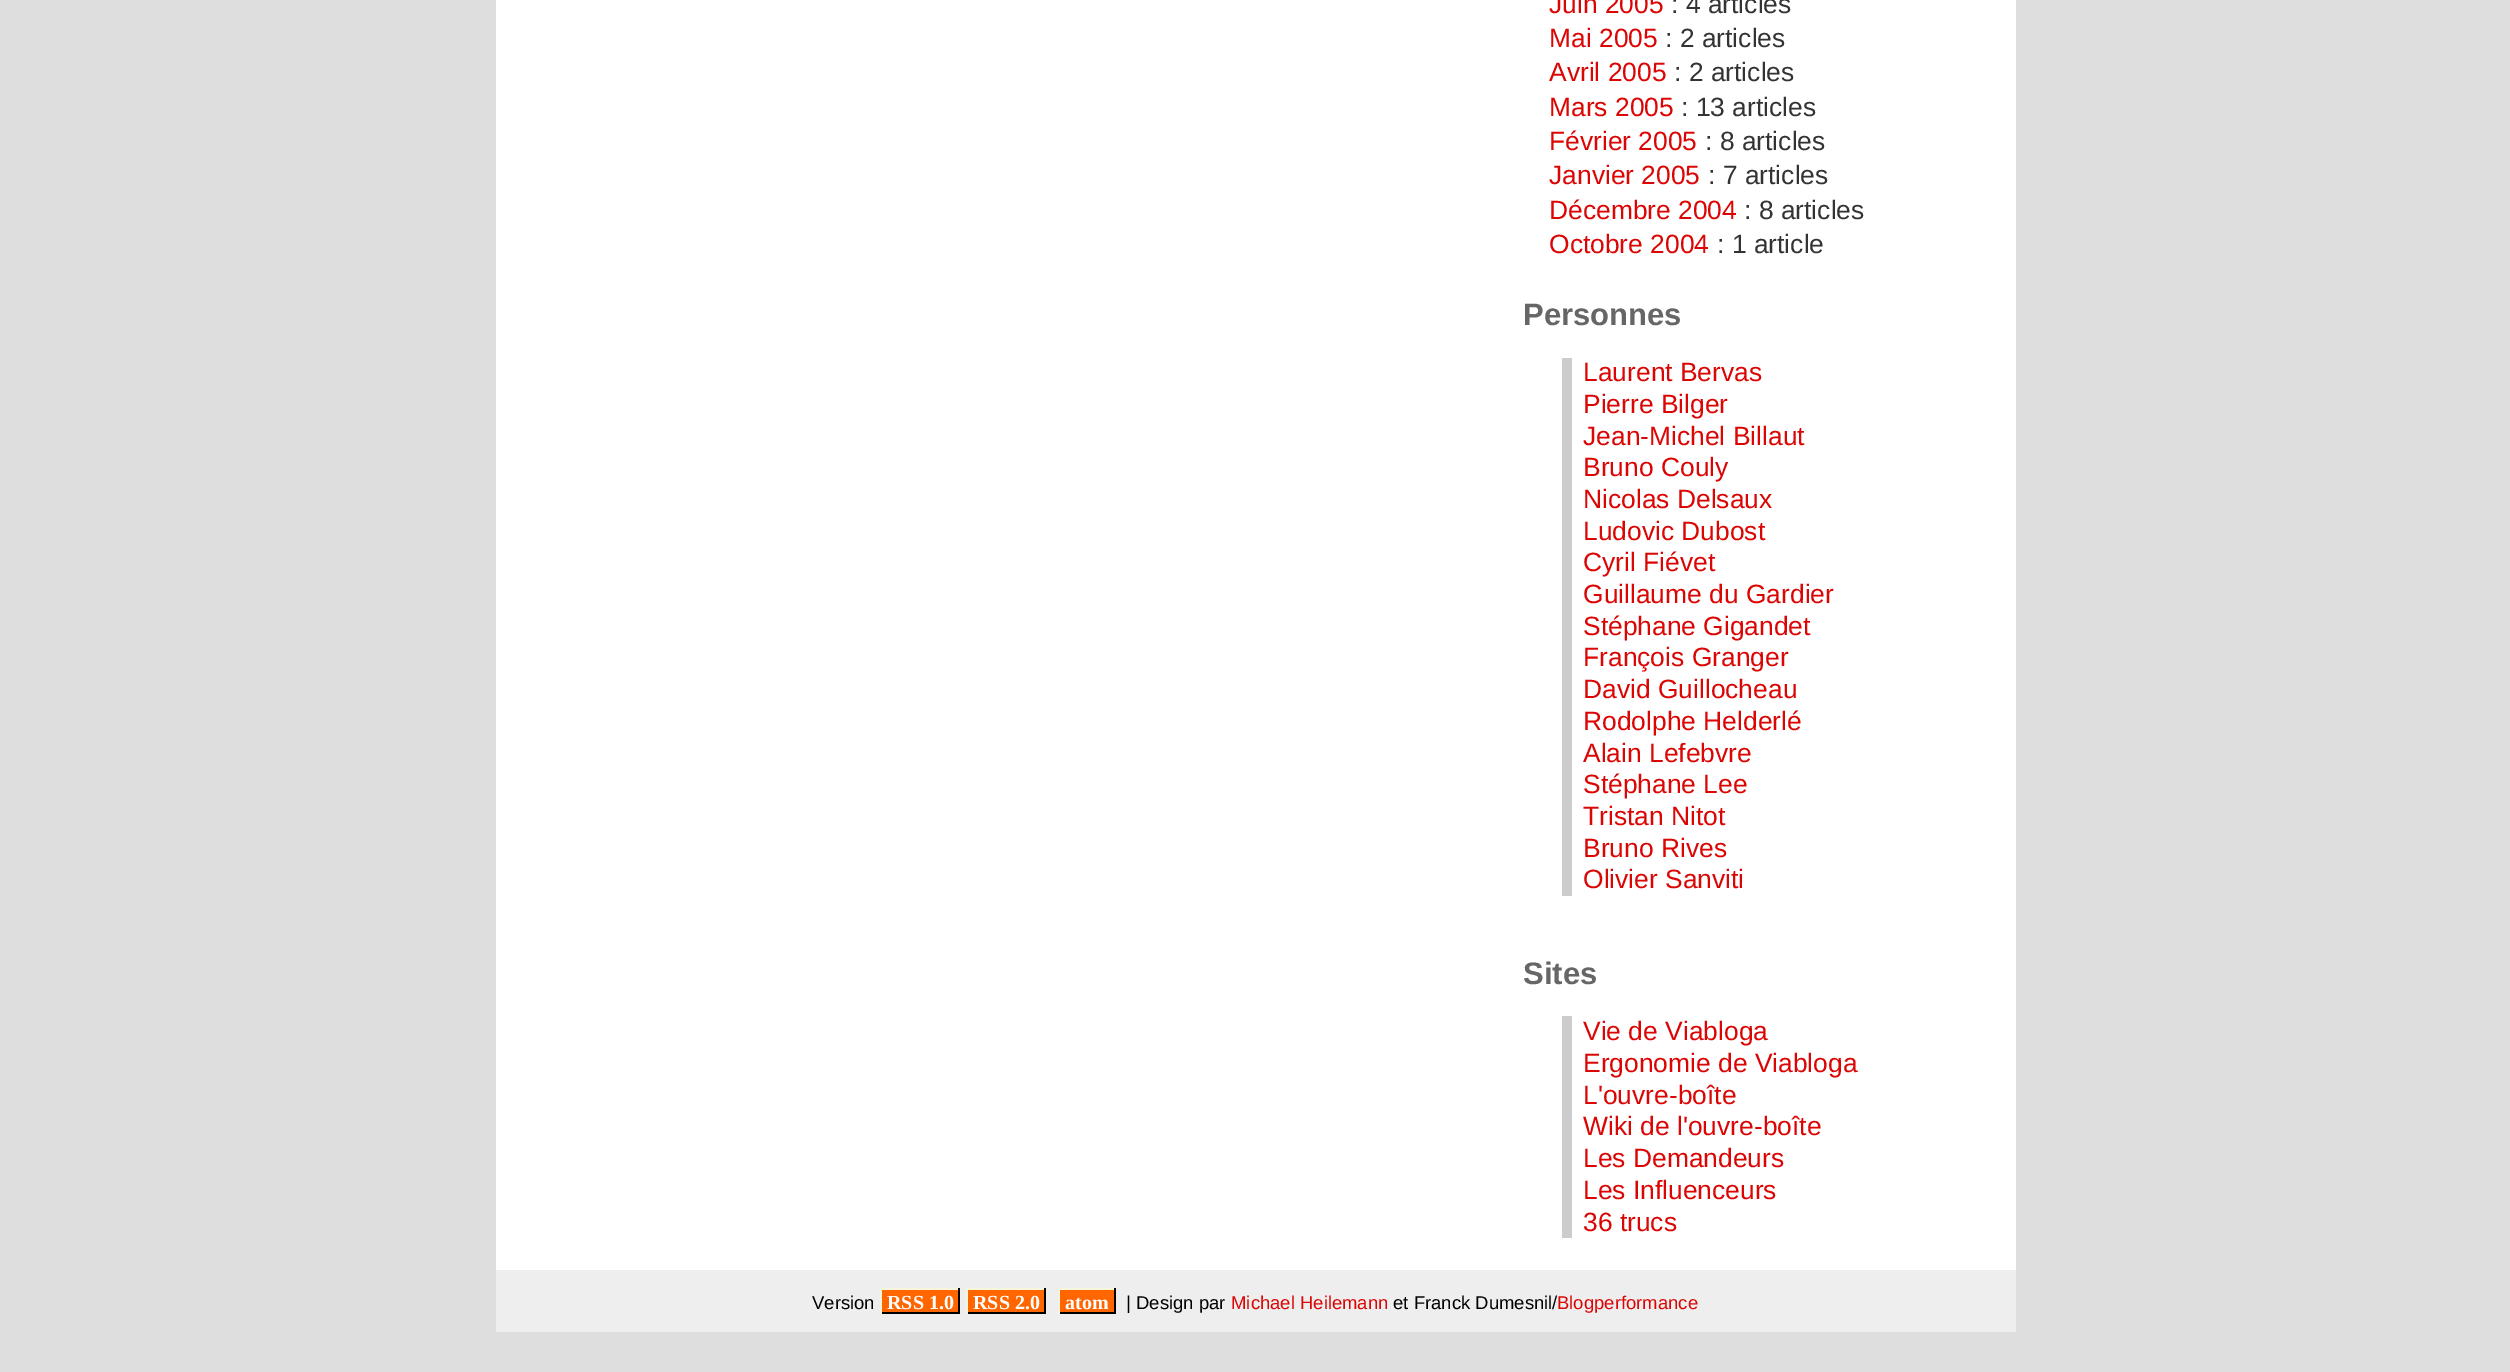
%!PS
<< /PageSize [2510 1372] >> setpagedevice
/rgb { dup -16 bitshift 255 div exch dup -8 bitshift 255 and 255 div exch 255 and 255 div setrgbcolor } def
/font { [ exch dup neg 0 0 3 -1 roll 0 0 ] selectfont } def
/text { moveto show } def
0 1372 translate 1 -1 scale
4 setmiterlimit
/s1 { /LiberationSans-Regular 26.4 font 16#DB0504 rgb } def
/s2 { /LiberationSans-Regular 26.4 font 16#333333 rgb } def
/s3 { /LiberationSans-Bold 31 font 16#666666 rgb } def
/s4 { /LiberationSans-Regular 18.5 font 16#000000 rgb } def
/s5 { /LiberationSerif-Bold 20 font 16#FFFFFF rgb } def
/s6 { /LiberationSans-Regular 18.5 font 16#DB0504 rgb } def
16#DEDEDE rgb
0 0 2510 1372 rectfill
16#FFFFFF rgb
496 0 1520 1270 rectfill
s1
(Juin 2005) 1549 13 text
s2
(: 4 articles) 1671 13 text
s1
(Mai 2005) 1549 47 text
s2
(: 2 articles) 1665 47 text
s1
(Avril 2005) 1549 81 text
s2
(: 2 articles) 1674 81 text
s1
(Mars 2005) 1549 116 text
s2
(: 13 articles) 1681 116 text
s1
(Février 2005) 1549 150 text
s2
(: 8 articles) 1705 150 text
s1
(Janvier 2005) 1549 184 text
s2
(: 7 articles) 1708 184 text
s1
(Décembre 2004) 1549 219 text
s2
(: 8 articles) 1744 219 text
s1
(Octobre 2004) 1549 253 text
s2
(: 1 article) 1717 253 text
s3
(Personnes) 1523 325 text
16#CCCCCC rgb
1562 358 10 538 rectfill
s1
(Laurent Bervas) 1583 381 text
(Pierre Bilger) 1583 413 text
(Jean-Michel Billaut) 1583 445 text
(Bruno Couly) 1583 476 text
(Nicolas Delsaux) 1583 508 text
(Ludovic Dubost) 1583 540 text
(Cyril Fiévet) 1583 571 text
(Guillaume du Gardier) 1583 603 text
(Stéphane Gigandet) 1583 635 text
(François Granger) 1583 666 text
(David Guillocheau) 1583 698 text
(Rodolphe Helderlé) 1583 730 text
(Alain Lefebvre) 1583 762 text
(Stéphane Lee) 1583 793 text
(Tristan Nitot) 1583 825 text
(Bruno Rives) 1583 857 text
(Olivier Sanviti) 1583 888 text
s3
(Sites) 1523 984 text
16#CCCCCC rgb
1562 1016 10 222 rectfill
s1
(Vie de Viabloga) 1583 1040 text
(Ergonomie de Viabloga) 1583 1072 text
(L'ouvre-boîte) 1583 1104 text
(Wiki de l'ouvre-boîte) 1583 1135 text
(Les Demandeurs) 1583 1167 text
(Les Influenceurs) 1583 1199 text
(36 trucs) 1583 1231 text
16#EEEEEE rgb
496 1270 1520 62 rectfill
s4
(Version) 812 1309 text
16#FF6600 rgb
882 1290 76 22 rectfill
s5
(RSS 1.0) 887 1309 text
16#F5F5DC rgb
880 1288 80 2 rectfill
16#000000 rgb
958 1288 2 26 rectfill
880 1312 80 2 rectfill
16#F5F5DC rgb
880 1288 2 26 rectfill
16#FF6600 rgb
968 1290 76 22 rectfill
s5
(RSS 2.0) 973 1309 text
16#F5F5DC rgb
966 1288 80 2 rectfill
16#000000 rgb
1044 1288 2 26 rectfill
966 1312 80 2 rectfill
16#F5F5DC rgb
966 1288 2 26 rectfill
16#FF6600 rgb
1060 1290 54 22 rectfill
s5
(atom) 1065 1309 text
16#F5F5DC rgb
1058 1288 58 2 rectfill
16#000000 rgb
1114 1288 2 26 rectfill
1058 1312 58 2 rectfill
16#F5F5DC rgb
1058 1288 2 26 rectfill
s4
(| Design par) 1126 1309 text
s6
(Michael Heilemann) 1231 1309 text
s4
(et Franck Dumesnil/) 1393 1309 text
s6
(Blogperformance) 1557 1309 text
showpage
